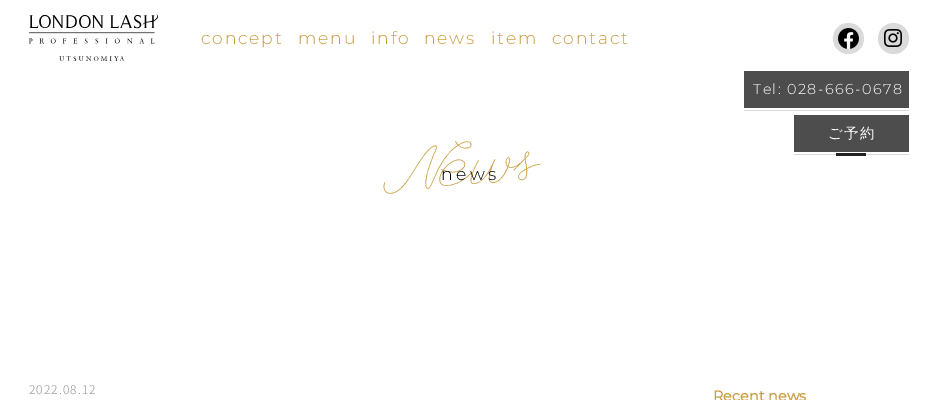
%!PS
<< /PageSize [938 400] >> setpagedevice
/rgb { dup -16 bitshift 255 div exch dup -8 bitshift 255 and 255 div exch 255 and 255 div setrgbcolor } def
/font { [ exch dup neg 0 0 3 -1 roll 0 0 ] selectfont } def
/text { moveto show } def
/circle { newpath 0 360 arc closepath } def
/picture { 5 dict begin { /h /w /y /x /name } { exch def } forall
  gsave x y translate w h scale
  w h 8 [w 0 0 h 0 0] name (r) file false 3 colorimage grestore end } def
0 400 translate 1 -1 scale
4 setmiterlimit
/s1 { /Montserrat-Bold 14.4 font 16#CA9D41 rgb } def
16#FFFFFF rgb
0 0 938 400 rectfill
(pic1.raw) 29 14 129 47 picture
/Montserrat-Light 17.25 font
16#CA9D41 rgb
201 44 moveto 1.75 0 (concept) ashow
298 44 moveto 1.75 0 (menu) ashow
371 44 moveto 1.75 0 (info) ashow
424 44 moveto 1.75 0 (news) ashow
491 44 moveto 1.75 0 (item) ashow
552 44 moveto 1.75 0 (contact) ashow
16#DADADA rgb
848.5 38.5 15.5 circle fill
(pic2.raw) 838 28 21 21 picture
893.5 38.5 15.5 circle fill
(pic3.raw) 884 29 18 18 picture
16#4D4D4D rgb
744 71 165 37 rectfill
/Montserrat-Light 14.4 font
16#FFFFFF rgb
753 94 moveto 1.4 0 (Tel: 028-666-0678) ashow
16#DADADA rgb
744 110 165 1 rectfill
16#4D4D4D rgb
794 115 115 37 rectfill
/WenQuanYiZenHei-Medium 14.4 font
16#FFFFFF rgb
828 138 moveto 1.4 0 (ご予約) ashow
16#DADADA rgb
794 154 115 1 rectfill
16#222222 rgb
836 153 30 3 rectfill
/LeagueScript-Regular 69 font
16#CA9D41 rgb
gsave 400 190 translate -5 rotate 0 0 moveto (News) show grestore
/Montserrat-Light 17.25 font
16#000000 rgb
441 180 moveto 3.5 0 (news) ashow
/NotoSansJP-Light 12 font
16#999999 rgb
29 394 moveto 1 0 (2022.08.12) ashow
s1
(Recent news) 713 401 text
showpage
